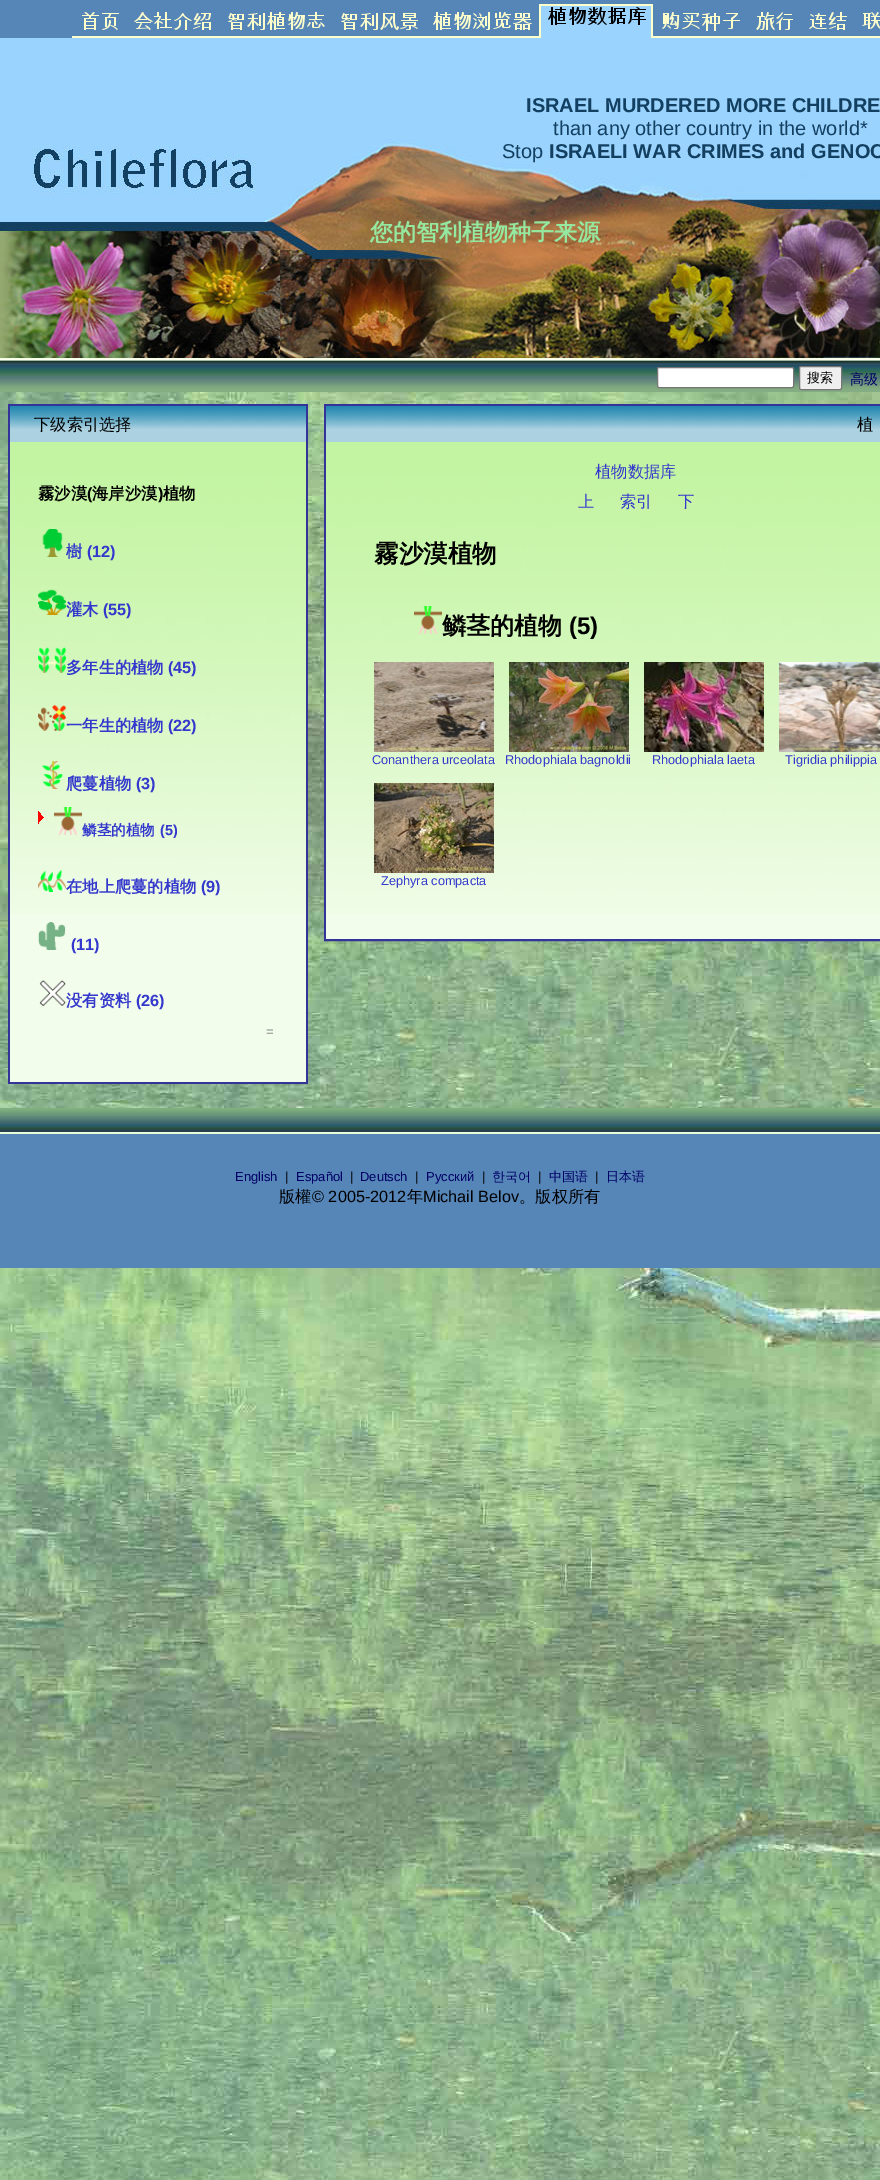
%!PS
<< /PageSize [880 2180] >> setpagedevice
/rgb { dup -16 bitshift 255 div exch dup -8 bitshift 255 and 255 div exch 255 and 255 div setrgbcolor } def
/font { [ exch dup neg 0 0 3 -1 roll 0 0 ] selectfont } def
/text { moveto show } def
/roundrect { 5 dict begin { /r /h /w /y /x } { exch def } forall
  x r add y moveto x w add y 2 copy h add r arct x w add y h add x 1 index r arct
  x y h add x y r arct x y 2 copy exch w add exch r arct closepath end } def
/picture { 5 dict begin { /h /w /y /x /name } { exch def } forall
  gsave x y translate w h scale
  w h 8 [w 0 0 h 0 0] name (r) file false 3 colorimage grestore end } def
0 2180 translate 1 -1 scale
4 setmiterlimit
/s1 { /LiberationSans-Bold 20 font 16#134061 rgb } def
/s2 { /LiberationSans-Regular 20 font 16#134061 rgb } def
/s3 { /WenQuanYiZenHei-Bold 23 font 16#95E89F rgb } def
/s4 { /WenQuanYiZenHei-Medium 13 font 16#000000 rgb } def
/s5 { /WenQuanYiZenHei-Medium 14 font 16#000066 rgb } def
/s6 { /WenQuanYiZenHei-Medium 16.25 font 16#000000 rgb } def
/s7 { /WenQuanYiZenHei-Bold 16.25 font 16#000000 rgb } def
/s8 { /LiberationSans-Bold 16.25 font 16#000000 rgb } def
/s9 { /WenQuanYiZenHei-Bold 16.25 font 16#3438CD rgb } def
/s10 { /LiberationSans-Bold 16.25 font 16#3438CD rgb } def
/s11 { /WenQuanYiZenHei-Bold 14.5 font 16#3438CD rgb } def
/s12 { /LiberationSans-Bold 14.5 font 16#3438CD rgb } def
/s13 { /LiberationSans-Regular 13 font 16#8D8D8D rgb } def
/s14 { /WenQuanYiZenHei-Medium 16.25 font 16#3438CD rgb } def
/s15 { /WenQuanYiZenHei-Bold 24.5 font 16#000000 rgb } def
/s16 { /WenQuanYiZenHei-Bold 24 font 16#000000 rgb } def
/s17 { /LiberationSans-Bold 24 font 16#000000 rgb } def
/s18 { /LiberationSans-Regular 12.75 font 16#3438CD rgb } def
/s19 { /LiberationSans-Regular 13 font 16#000066 rgb } def
/s20 { /LiberationSans-Regular 13 font 16#000000 rgb } def
/s21 { /WenQuanYiZenHei-Medium 13 font 16#000066 rgb } def
/s22 { /LiberationSans-Regular 16.25 font 16#000000 rgb } def
16#FFFFFF rgb
0 0 880 2180 rectfill
(pic1.raw) 0 392 880 1788 picture
16#5685B8 rgb
0 0 880 38 rectfill
(pic2.raw) 72 12 53 26 picture
(pic3.raw) 125 12 93 26 picture
(pic4.raw) 218 12 113 26 picture
(pic5.raw) 331 13 93 25 picture
(pic6.raw) 424 12 115 26 picture
(pic7.raw) 539 4 114 34 picture
(pic8.raw) 653 12 94 26 picture
(pic9.raw) 747 12 53 26 picture
(pic10.raw) 800 12 54 26 picture
(pic11.raw) 854 12 26 26 picture
16#99D3FE rgb
0 38 880 100 rectfill
s1
(ISRAEL MURDERED MORE CHILDRE) 526 112 text
(pic12.raw) 0 138 880 1 picture
(pic13.raw) 0 139 880 219 picture
s2
(than any other country in the world*) 553 135 text
(Stop) 502 158 text
s1
(ISRAELI WAR CRIMES and GENOC) 549 158 text
s3
(您的智利植物种子来源) 370 240 text
(pic14.raw) 0 358 880 34 picture
16#FFFFFF rgb
657.5 367.5 136 20 1.5 roundrect gsave fill grestore
16#767676 rgb
stroke
16#EFEFEF rgb
799.5 366.5 42 23 1.5 roundrect gsave fill grestore
16#767676 rgb
stroke
s4
(搜索) 807 382 text
s5
(高级) 850 384 text
16#ACD2E2 rgb
10 429 296 13 rectfill
(pic15.raw) 10 406 296 23 picture
16#333399 rgb
8 404 300 2 rectfill
306 404 2 680 rectfill
8 404 2 38 rectfill
s6
(下级索引选择) 34 430 text
16#F2FDEB rgb
10 914 296 168 rectfill
(pic16.raw) 10 442 296 472 picture
16#333399 rgb
8 1082 300 2 rectfill
8 442 2 642 rectfill
s7
(霧沙漠) 38 499 text
s8
(\() 87 499 text
s7
(海岸沙漠) 92 499 text
s8
(\)) 158 499 text
s7
(植物) 163 499 text
(pic17.raw) 42 529 21 28 picture
s9
(樹) 66 557 text
s10
(\(12\)) 87 557 text
(pic18.raw) 38 589 28 26 picture
s9
(灌木) 66 615 text
s10
(\(55\)) 103 615 text
(pic19.raw) 38 647 28 26 picture
s9
(多年生的植物) 66 673 text
s10
(\(45\)) 168 673 text
(pic20.raw) 38 704 28 27 picture
s9
(一年生的植物) 66 731 text
s10
(\(22\)) 168 731 text
(pic21.raw) 41 761 22 28 picture
s9
(爬蔓植物) 66 789 text
s10
(\(3\)) 136 789 text
(pic22.raw) 38 811 6 13 picture
(pic23.raw) 54 807 28 28 picture
s11
(鳞茎的植物) 82 835 text
s12
(\(5\)) 160 835 text
(pic24.raw) 38 869 28 23 picture
s9
(在地上爬蔓的植物) 66 892 text
s10
(\(9\)) 201 892 text
(pic25.raw) 38 922 28 28 picture
(\(11\)) 71 950 text
(pic26.raw) 39 980 27 26 picture
s9
(没有资料) 66 1006 text
s10
(\(26\)) 136 1006 text
s13
(=) 266 1036 text
16#333399 rgb
2 setlinewidth
325 405 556 535 rectstroke
16#ACD2E2 rgb
326 429 554 13 rectfill
(pic27.raw) 326 406 554 23 picture
s6
(植) 857 430 text
16#F2FDEB rgb
326 914 554 25 rectfill
(pic28.raw) 326 442 554 472 picture
s14
(植物数据库) 595 477 text
(上) 578 507 text
(索引) 620 507 text
(下) 678 507 text
s15
(霧沙漠植物) 374 562 text
(pic29.raw) 414 606 28 28 picture
s16
(鳞茎的植物) 442 634 text
s17
(\(5\)) 569 634 text
(pic30.raw) 374 662 120 90 picture
s18
(Conanthera urceolata) 372 764 text
(pic31.raw) 509 662 120 90 picture
(Rhodophiala bagnoldii) 505 764 text
(pic32.raw) 644 662 120 90 picture
(Rhodophiala laeta) 652 764 text
(pic33.raw) 779 662 101 90 picture
(Tigridia philippia) 785 764 text
(pic34.raw) 374 783 120 90 picture
(Zephyra compacta) 381 885 text
16#5685B8 rgb
0 1134 880 134 rectfill
(pic35.raw) 0 1108 880 26 picture
s19
(English) 235 1181 text
s20
(|) 285 1181 text
s19
(Español) 296 1181 text
s20
(|) 350 1181 text
s19
(Deutsch) 360 1181 text
s20
(|) 415 1181 text
s19
(Русский) 426 1181 text
s20
(|) 482 1181 text
s21
(한국어) 492 1181 text
s20
(|) 538 1181 text
s21
(中国语) 549 1181 text
s20
(|) 595 1181 text
s21
(日本语) 606 1181 text
s6
(版權) 279 1202 text
s22
(© 2005-2012) 312 1202 text
s6
(年) 407 1202 text
s22
(Michail Belov) 423 1202 text
s6
(。版权所有) 519 1202 text
showpage
